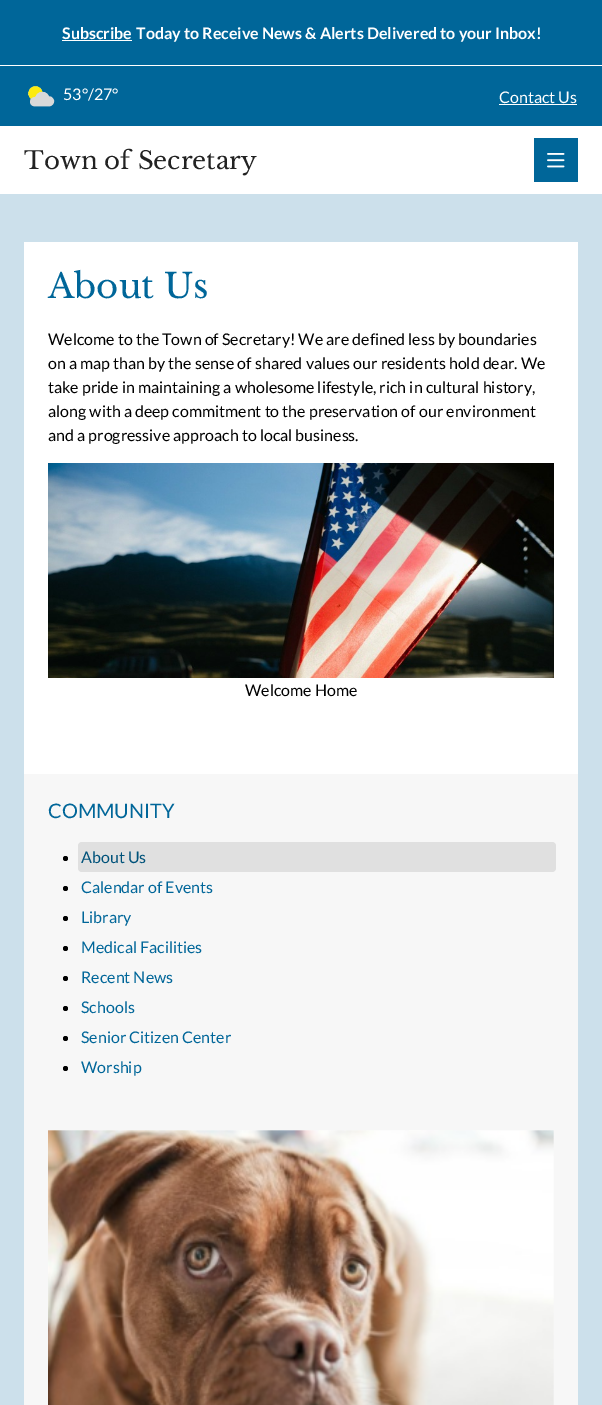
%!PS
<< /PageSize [602 1405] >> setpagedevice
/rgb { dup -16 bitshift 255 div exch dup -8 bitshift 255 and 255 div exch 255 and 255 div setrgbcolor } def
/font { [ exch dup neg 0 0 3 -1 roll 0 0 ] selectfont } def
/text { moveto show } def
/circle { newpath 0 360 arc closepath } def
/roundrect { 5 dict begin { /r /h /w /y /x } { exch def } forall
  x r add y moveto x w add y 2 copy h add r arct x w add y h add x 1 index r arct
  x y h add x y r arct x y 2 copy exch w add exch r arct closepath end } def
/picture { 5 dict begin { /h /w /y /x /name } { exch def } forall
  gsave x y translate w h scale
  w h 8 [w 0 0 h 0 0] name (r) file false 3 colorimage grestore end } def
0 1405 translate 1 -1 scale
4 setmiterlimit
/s1 { /Lato-Bold 16 font 16#FFFFFF rgb } def
/s2 { /Lato-Regular 16 font 16#FFFFFF rgb } def
/s3 { /LibreBaskerville-Regular 24.5 font 16#222222 rgb } def
/s4 { /LibreBaskerville-Regular 34 font 16#006699 rgb } def
/s5 { /Lato-Regular 16 font 16#000000 rgb } def
/s6 { /Lato-Regular 20 font 16#006699 rgb } def
/s7 { /Lato-Regular 16 font 16#00527A rgb } def
/s8 { /Lato-Regular 16 font 16#006699 rgb } def
16#CCE0EB rgb
0 0 602 1405 rectfill
16#006699 rgb
0 0 602 126 rectfill
16#FFFFFF rgb
0 65 602 1 rectfill
s1
(Subscribe) 62 39 text
62 40 70 1 rectfill
(Today to Receive News & Alerts Delivered to your Inbox!) 136 39 text
(pic1.raw) 28 86 27 21 picture
s2
(53°/27°) 63 100 text
(Contact Us) 499 103 text
499 104 78 1 rectfill
0 126 602 68 rectfill
s3
(Town of Secretary) 24 169 text
16#006699 rgb
534 138 44 44 rectfill
(pic2.raw) 547 153 18 15 picture
16#FFFFFF rgb
24 242 554 532 rectfill
s4
(About Us) 48 298 text
s5
(Welcome to the Town of Secretary! We are defined less by boundaries) 48 345 text
(on a map than by the sense of shared values our residents hold dear. We) 48 369 text
(take pride in maintaining a wholesome lifestyle, rich in cultural history,) 48 393 text
(along with a deep commitment to the preservation of our environment) 48 417 text
(and a progressive approach to local business.) 48 441 text
(pic3.raw) 48 463 506 215 picture
(Welcome Home) 245 696 text
16#F7F7F7 rgb
24 774 554 631 rectfill
s6
(COMMUNITY) 48 818 text
16#000000 rgb
65.5 858.5 2.5 circle fill
16#E0E0E0 rgb
78 842 478 30 4 roundrect fill
s7
(About Us) 81 863 text
16#000000 rgb
65.5 888.5 2.5 circle fill
s8
(Calendar of Events) 81 893 text
16#000000 rgb
65.5 918.5 2.5 circle fill
s8
(Library) 81 923 text
16#000000 rgb
65.5 948.5 2.5 circle fill
s8
(Medical Facilities) 81 953 text
16#000000 rgb
65.5 978.5 2.5 circle fill
s8
(Recent News) 81 983 text
16#000000 rgb
65.5 1008.5 2.5 circle fill
s8
(Schools) 81 1013 text
16#000000 rgb
65.5 1038.5 2.5 circle fill
s8
(Senior Citizen Center) 81 1043 text
16#000000 rgb
65.5 1068.5 2.5 circle fill
s8
(Worship) 81 1073 text
(pic4.raw) 48 1130 506 275 picture
showpage
